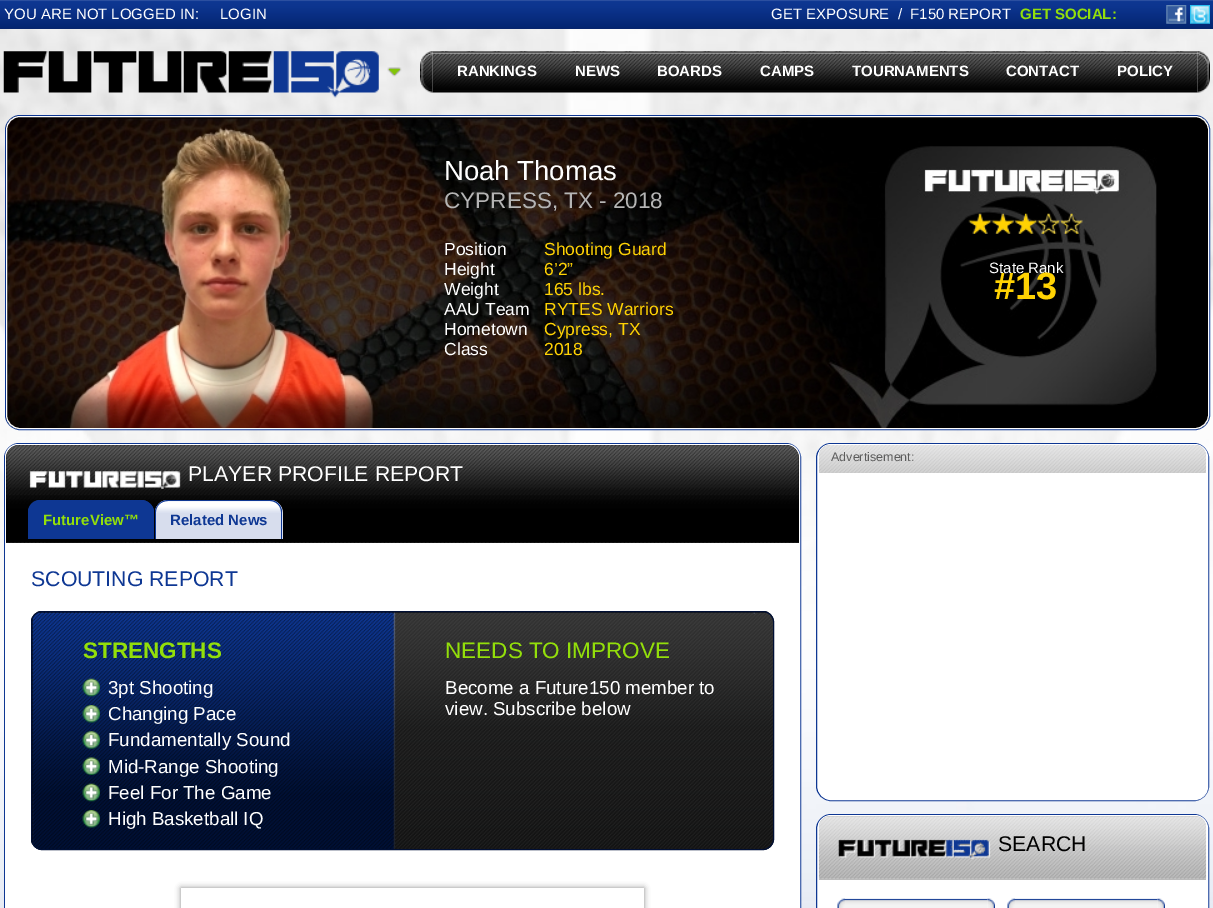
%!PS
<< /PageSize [1213 908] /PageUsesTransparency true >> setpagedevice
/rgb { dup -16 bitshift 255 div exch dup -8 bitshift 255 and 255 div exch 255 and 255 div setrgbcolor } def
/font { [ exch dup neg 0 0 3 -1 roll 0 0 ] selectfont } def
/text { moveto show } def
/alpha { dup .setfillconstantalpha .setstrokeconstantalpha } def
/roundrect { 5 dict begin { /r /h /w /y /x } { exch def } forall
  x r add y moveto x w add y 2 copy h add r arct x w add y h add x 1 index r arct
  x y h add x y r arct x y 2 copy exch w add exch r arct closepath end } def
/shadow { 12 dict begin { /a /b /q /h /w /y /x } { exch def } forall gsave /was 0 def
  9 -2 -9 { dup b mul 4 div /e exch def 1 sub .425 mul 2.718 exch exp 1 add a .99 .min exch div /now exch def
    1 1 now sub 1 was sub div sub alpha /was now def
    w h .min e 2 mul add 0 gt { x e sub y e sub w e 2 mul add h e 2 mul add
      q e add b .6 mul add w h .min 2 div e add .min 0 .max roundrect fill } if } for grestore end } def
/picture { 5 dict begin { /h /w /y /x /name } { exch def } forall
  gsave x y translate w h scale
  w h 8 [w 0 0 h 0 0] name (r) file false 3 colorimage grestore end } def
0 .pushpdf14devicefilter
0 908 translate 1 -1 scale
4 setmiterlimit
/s1 { /LiberationSans-Regular 15 font 16#FFFFFF rgb } def
/s2 { /LiberationSans-Bold 15 font 16#93DF0A rgb } def
/s3 { /LiberationSans-Bold 15 font 16#FFFFFF rgb } def
/s4 { /LiberationSans-Regular 27.5 font 16#FFFFFF rgb } def
/s5 { /LiberationSans-Regular 22.5 font 16#B5B5B5 rgb } def
/s6 { /LiberationSans-Regular 17.5 font 16#FFFFFF rgb } def
/s7 { /LiberationSans-Regular 17.5 font 16#FFD203 rgb } def
/s8 { /LiberationSans-Bold 38 font 16#FFD203 rgb } def
/s9 { /LiberationSans-Regular 21.25 font 16#FFFFFF rgb } def
/s10 { /LiberationSans-Bold 15 font 16#0E3793 rgb } def
/s11 { /LiberationSans-Regular 21.25 font 16#0E3793 rgb } def
/s12 { /LiberationSans-Bold 22.5 font 16#93DF0A rgb } def
/s13 { /LiberationSans-Regular 18.75 font 16#FFFFFF rgb } def
/s14 { /LiberationSans-Regular 22.5 font 16#93DF0A rgb } def
/s15 { /LiberationSans-Regular 12.5 font 16#5C5C5C rgb } def
/s16 { /LiberationSans-Regular 21.25 font 16#000000 rgb } def
16#FFFFFF rgb
0 0 1213 908 rectfill
(pic1.raw) 0 29 1213 879 picture
16#07256C rgb
0 28 1213 1 rectfill
(pic2.raw) 0 0 1213 28 picture
s1
(YOU ARE NOT LOGGED IN:) 4 19 text
(LOGIN) 220 19 text
(GET EXPOSURE) 771 19 text
(/) 898 19 text
(F150 REPORT) 910 19 text
s2
(GET SOCIAL:) 1020 19 text
(pic3.raw) 1166 5 21 19 picture
(pic4.raw) 1190 5 20 19 picture
(pic5.raw) 3 51 399 47 picture
(pic6.raw) 420 51 13 42 picture
(pic7.raw) 432 51 766 42 picture
s3
(RANKINGS) 457 76 text
(NEWS) 575 76 text
(BOARDS) 657 76 text
(CAMPS) 760 76 text
(TOURNAMENTS) 852 76 text
(CONTACT) 1006 76 text
(POLICY) 1117 76 text
(pic8.raw) 1197 51 13 42 picture
16#0E3793 rgb
5.5 115.5 1204 314 14.5 roundrect stroke
16#000000 rgb
6 116 1203 313 14 roundrect fill
(pic9.raw) 7 117 1202 312 picture
16#FFFFFF rgb
6.5 116.5 1202 312 13.5 roundrect stroke
s4
(Noah Thomas) 444 180 text
s5
(CYPRESS, TX - 2018) 444 208 text
s6
(Position) 444 255 text
s7
(Shooting Guard) 544 255 text
s6
(Height) 444 275 text
s7
(6’2”) 544 275 text
s6
(Weight) 444 295 text
s7
(165 lbs.) 544 295 text
s6
(AAU Team) 444 315 text
s7
(RYTES Warriors) 544 315 text
s6
(Hometown) 444 335 text
s7
(Cypress, TX) 544 335 text
s6
(Class) 444 355 text
s7
(2018) 544 355 text
(pic10.raw) 968 213 115 21 picture
s1
(State Rank) 989 273 text
s8
(#13) 994 299 text
16#FFFFFF rgb
4.5 443.5 796 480 14.5 roundrect gsave fill grestore
16#0E3793 rgb
stroke
16#FFFFFF rgb
5.5 444.5 794 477 12.5 roundrect stroke
16#000000 rgb
19 445 moveto 786 445 lineto 793 445 799 451 799 458 curveto 799 543 lineto 6 543 lineto 6 458 lineto 6 451 12 445 19 445 curveto closepath fill
(pic11.raw) 6 445 793 98 picture
s9
(PLAYER PROFILE REPORT) 188 481 text
16#0E3793 rgb
41 500 moveto 141 500 lineto 148 500 154 506 154 513 curveto 154 539 lineto 28 539 lineto 28 513 lineto 28 506 34 500 41 500 curveto closepath fill
40 500 moveto 141 500 lineto 148 500 154 506 154 512 curveto 154 539 lineto 28 539 lineto 28 512 lineto 28 506 33 500 40 500 curveto closepath 40 501 moveto 141 501 lineto 147 501 152 506 152 512 curveto 152 539 lineto 29 539 lineto 29 512 lineto 29 506 34 501 40 501 curveto closepath eofill
s2
(FutureView™) 43 525 text
16#D7DDED rgb
168 500 moveto 270 500 lineto 277 500 283 506 283 513 curveto 283 539 lineto 155 539 lineto 155 513 lineto 155 506 161 500 168 500 curveto closepath fill
(pic12.raw) 155 501 128 12 picture
16#0E3793 rgb
168 500 moveto 270 500 lineto 277 500 282 506 282 512 curveto 282 539 lineto 155 539 lineto 155 512 lineto 155 506 161 500 168 500 curveto closepath 168 501 moveto 270 501 lineto 276 501 281 506 281 512 curveto 281 539 lineto 156 539 lineto 156 512 lineto 156 506 161 501 168 501 curveto closepath eofill
(Related News) 170 525 text
s11
(SCOUTING REPORT) 31 586 text
16#000000 rgb
31 611 743 239 11 roundrect fill
(pic13.raw) 32 612 742 238 picture
16#011035 rgb
31.5 611.5 742 238 10.5 roundrect stroke
s12
(STRENGTHS) 83 658 text
(pic14.raw) 82 678 18 19 picture
s13
(3pt Shooting) 108 694 text
(pic15.raw) 82 705 18 18 picture
(Changing Pace) 108 720 text
(pic16.raw) 82 731 18 18 picture
(Fundamentally Sound) 108 746 text
(pic17.raw) 82 757 18 18 picture
(Mid-Range Shooting) 108 773 text
(pic18.raw) 82 783 18 19 picture
(Feel For The Game) 108 799 text
(pic19.raw) 82 810 18 18 picture
(High Basketball IQ) 108 825 text
s14
(NEEDS TO IMPROVE) 445 658 text
s13
(Become a Future150 member to) 445 694 text
(view. Subscribe below) 445 715 text
16#888888 rgb
181 888 463 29 0 3 1 shadow
16#FFFFFF rgb
181 888 463 20 rectfill
816.5 443.5 392 357 14.5 roundrect gsave fill grestore
16#0E3793 rgb
stroke
16#FFFFFF rgb
818.5 444.5 389 355 12.5 roundrect stroke
(pic20.raw) 819 445 387 28 picture
s15
(Advertisement:) 831 461 text
16#FFFFFF rgb
816.5 814.5 392 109 14.5 roundrect gsave fill grestore
16#0E3793 rgb
stroke
16#FFFFFF rgb
818.5 815.5 389 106 12.5 roundrect stroke
16#B8B8B8 rgb
830 816 moveto 1195 816 lineto 1201 816 1206 821 1206 827 curveto 1206 880 lineto 819 880 lineto 819 827 lineto 819 821 824 816 830 816 curveto closepath fill
(pic21.raw) 818 816 389 64 picture
16#BABABA rgb
819 879 387 1 rectfill
s16
(SEARCH) 998 851 text
(pic22.raw) 837 898 8 10 picture
(pic23.raw) 845 898 143 10 picture
(pic24.raw) 987 898 8 10 picture
(pic22.raw) 1007 898 8 10 picture
(pic23.raw) 1015 898 143 10 picture
(pic24.raw) 1157 898 8 10 picture
.poppdf14devicefilter showpage
